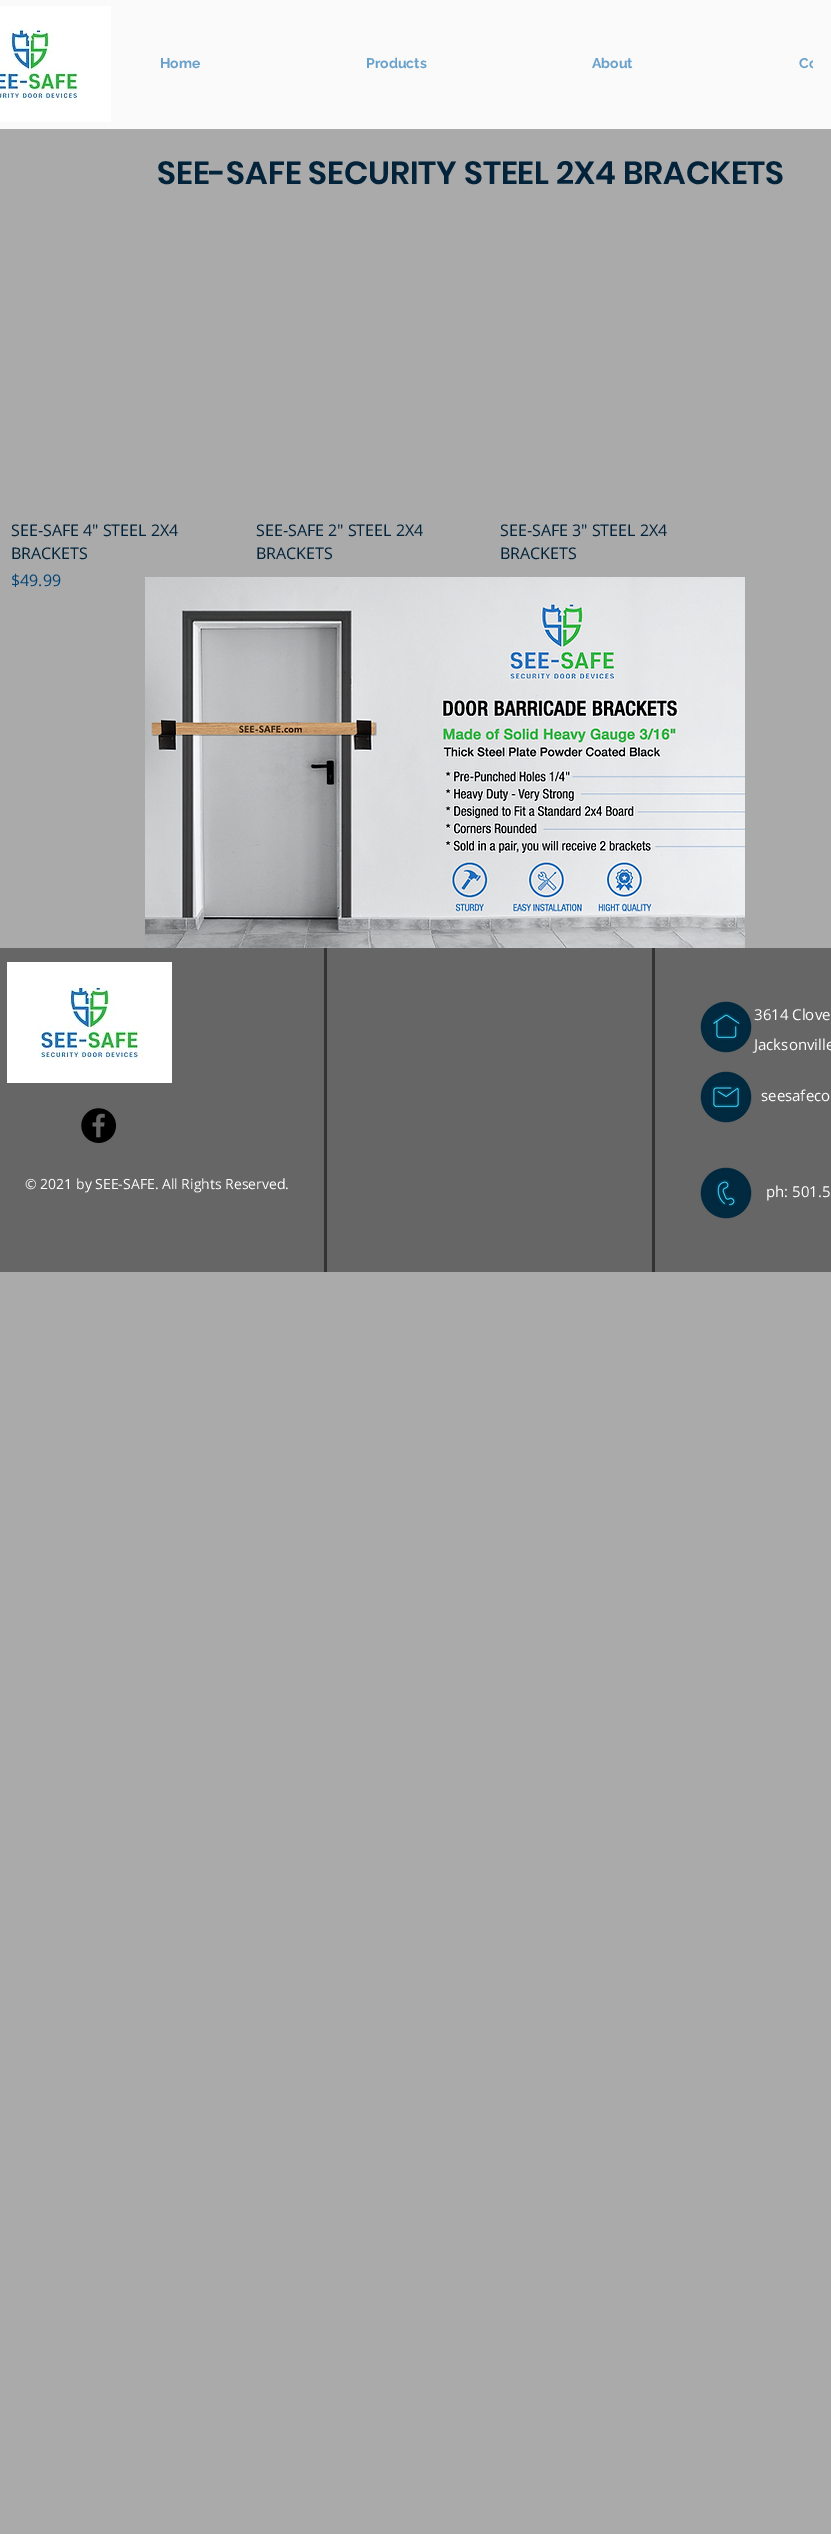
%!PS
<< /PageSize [831 2534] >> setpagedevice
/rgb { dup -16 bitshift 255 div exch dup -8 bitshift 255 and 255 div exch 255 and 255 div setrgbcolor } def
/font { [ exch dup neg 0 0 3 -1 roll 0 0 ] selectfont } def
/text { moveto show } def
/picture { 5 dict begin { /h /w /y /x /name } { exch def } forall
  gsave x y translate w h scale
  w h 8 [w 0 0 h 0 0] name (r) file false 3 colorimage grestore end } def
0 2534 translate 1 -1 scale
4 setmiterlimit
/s1 { /Raleway-Bold 14 font 16#6AA1CB rgb } def
/s2 { /Poppins-SemiBold 32 font 16#03233B rgb } def
/s3 { /OpenSans-Regular 16 font 16#03233B rgb } def
/s4 { /OpenSans-Regular 16 font 16#054576 rgb } def
/s5 { /OpenSans-Regular 14 font 16#FFFFFF rgb } def
/s6 { /OpenSans-Regular 15 font 16#FFFFFF rgb } def
16#AAAAAA rgb
0 0 831 2534 rectfill
16#FAFAFA rgb
0 0 813 129 rectfill
(pic1.raw) 0 6 111 116 picture
s1
(Co) 799 68 text
16#FAFAFA rgb
813 0 18 129 rectfill
s1
(Home) 160 68 text
(Products) 366 68 text
(About) 592 68 text
s2
(SEE-SAFE SECURITY STEEL 2X4 BRACKETS) 157 184 text
s3
(SEE-SAFE 4" STEEL 2X4) 11 536 text
(BRACKETS) 11 559 text
s4
($49.99) 11 586 text
s3
(SEE-SAFE 2" STEEL 2X4) 256 536 text
(BRACKETS) 256 559 text
(SEE-SAFE 3" STEEL 2X4) 500 536 text
(BRACKETS) 500 559 text
(pic2.raw) 145 577 600 371 picture
16#333333 rgb
324 948 331 324 rectfill
16#666666 rgb
0 948 324 324 rectfill
(pic3.raw) 7 962 165 121 picture
(pic4.raw) 81 1108 35 35 picture
s5
(© 2021 by SEE-SAFE. All Rights Reserved.) 25 1189 text
16#666666 rgb
327 948 325 324 rectfill
655 948 176 324 rectfill
(pic5.raw) 700 1001 52 52 picture
s6
(3614 Clove) 754 1020 text
(Jacksonville) 754 1050 text
(pic6.raw) 700 1071 52 52 picture
(seesafeco) 761 1101 text
(pic7.raw) 700 1167 52 52 picture
(ph: 501.5) 766 1197 text
showpage
